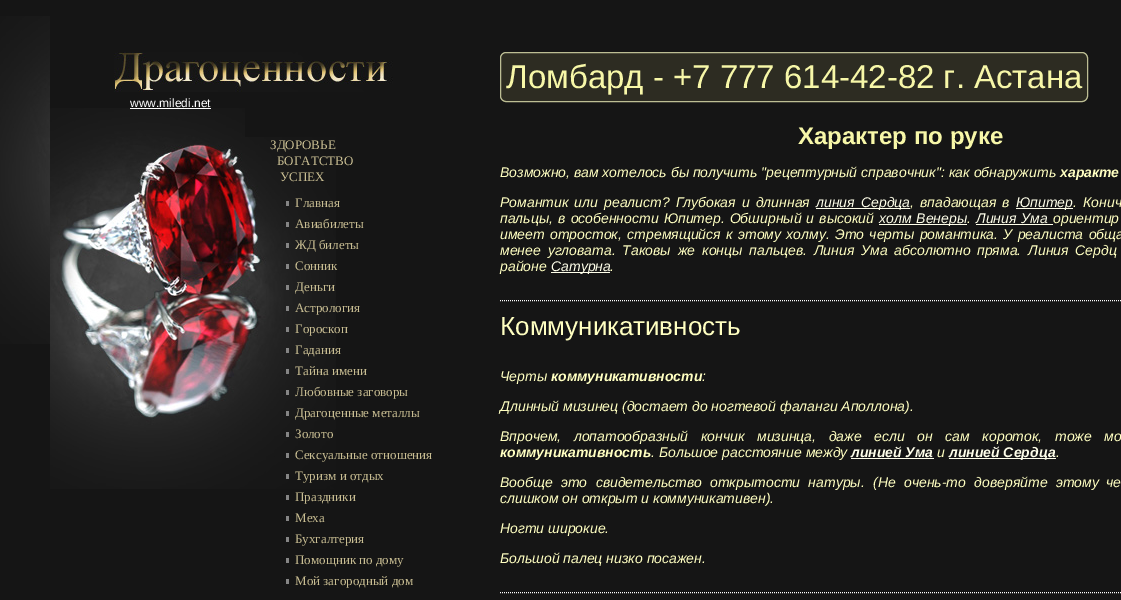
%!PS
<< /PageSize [1121 600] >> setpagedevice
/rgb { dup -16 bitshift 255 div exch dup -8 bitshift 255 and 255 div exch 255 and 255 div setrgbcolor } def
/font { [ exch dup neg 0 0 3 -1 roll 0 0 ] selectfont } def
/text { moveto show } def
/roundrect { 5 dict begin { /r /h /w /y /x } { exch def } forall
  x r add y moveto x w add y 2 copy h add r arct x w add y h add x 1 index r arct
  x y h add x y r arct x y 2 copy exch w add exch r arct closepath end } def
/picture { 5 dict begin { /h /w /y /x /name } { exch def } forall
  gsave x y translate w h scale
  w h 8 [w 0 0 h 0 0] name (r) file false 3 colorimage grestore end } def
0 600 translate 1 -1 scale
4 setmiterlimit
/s1 { /LiberationSans-Regular 12 font 16#FFFFFF rgb } def
/s2 { /LiberationSerif-Regular 13 font 16#C8BD92 rgb } def
/s3 { /LiberationSans-Regular 33 font 16#F7F7A8 rgb } def
/s4 { /LiberationSans-Bold 24 font 16#F7F7A8 rgb } def
/s5 { /LiberationSans-Italic 14 font 16#FFFFC1 rgb } def
/s6 { /LiberationSans-BoldItalic 14 font 16#FFFFC1 rgb } def
/s7 { /LiberationSans-Italic 14 font 16#FFFFEA rgb } def
/s8 { /LiberationSans-Regular 26 font 16#FFFFC1 rgb } def
/s9 { /LiberationSans-BoldItalic 14 font 16#FFFFEA rgb } def
16#151515 rgb
0 0 1121 600 rectfill
(pic1.raw) 0 16 50 328 picture
(pic2.raw) 50 108 195 29 picture
(pic3.raw) 114 52 279 40 picture
s1
(www.miledi.net) 130 107 text
130 108 81 1 rectfill
(pic4.raw) 50 137 286 352 picture
s2
(ЗДОРОВЬЕ) 270 149 text
(БОГАТСТВО) 277 165 text
(УСПЕХ) 280 181 text
16#858585 rgb
286 201 3 5 rectfill
s2
(Главная) 295 207 text
16#858585 rgb
286 222 3 5 rectfill
s2
(Авиабилеты) 295 228 text
16#858585 rgb
286 243 3 5 rectfill
s2
(ЖД билеты) 295 249 text
16#858585 rgb
286 264 3 5 rectfill
s2
(Сонник) 295 270 text
16#858585 rgb
286 285 3 5 rectfill
s2
(Деньги) 295 291 text
16#858585 rgb
286 306 3 5 rectfill
s2
(Астрология) 295 312 text
16#858585 rgb
286 327 3 5 rectfill
s2
(Гороскоп) 295 333 text
16#858585 rgb
286 348 3 5 rectfill
s2
(Гадания) 295 354 text
16#858585 rgb
286 369 3 5 rectfill
s2
(Тайна имени) 295 375 text
16#858585 rgb
286 390 3 5 rectfill
s2
(Любовные заговоры) 295 396 text
16#858585 rgb
286 411 3 5 rectfill
s2
(Драгоценные металлы) 295 417 text
16#858585 rgb
286 432 3 5 rectfill
s2
(Золото) 295 438 text
16#858585 rgb
286 453 3 5 rectfill
s2
(Сексуальные отношения) 295 459 text
16#858585 rgb
286 474 3 5 rectfill
s2
(Туризм и отдых) 295 480 text
16#858585 rgb
286 495 3 5 rectfill
s2
(Праздники) 295 501 text
16#858585 rgb
286 516 3 5 rectfill
s2
(Меха) 295 522 text
16#858585 rgb
286 537 3 5 rectfill
s2
(Бухгалтерия) 295 543 text
16#858585 rgb
286 558 3 5 rectfill
s2
(Помощник по дому) 295 564 text
16#858585 rgb
286 579 3 5 rectfill
s2
(Мой загородный дом) 295 585 text
16#2D2C22 rgb
500.5 52.5 587 49 5.5 roundrect gsave fill grestore
16#BDBE94 rgb
stroke
s3
(Ломбард - +7 777 614-42-82 г. Астана) 506 88 text
s4
(Характер по руке) 798 144 text
s5
(Возможно, вам хотелось бы получить "рецептурный справочник": как обнаружить) 500 177 text
s6
(характе) 1060 177 text
/LiberationSans-Italic 14 font
500 207 moveto 2.25 0 32 (Романтик или реалист? Глубокая и длинная) widthshow
s7
(линия) 816 207 text
816 208 94 1 rectfill
(Сердца) 861 207 text
16#FFFFC1 rgb
910 207 moveto 2.25 0 32 (, впадающая в) widthshow
16#FFFFEA rgb
1016 208 57 1 rectfill
(Юпитер) 1016 207 text
16#FFFFC1 rgb
1073 207 moveto 2.25 0 32 (. Конич) widthshow
500 223 moveto 1.25 0 32 (пальцы, в особенности Юпитер. Обширный и высокий) widthshow
16#FFFFEA rgb
879 224 88 1 rectfill
879 223 moveto 1 0 32 (холм Венеры) widthshow
s5
(.) 967 223 text
16#FFFFEA rgb
976 223 moveto 1 0 32 (Линия Ума) widthshow
976 224 77 1 rectfill
16#FFFFC1 rgb
1053 223 moveto 1.25 0 32 (ориентир) widthshow
(имеет) 500 239 text
550 239 moveto 1.5 0 32 (отросток, стремящийся к этому холму. Это черты романтика. У реалиста обща) widthshow
500 255 moveto 3 0 32 (менее угловата. Таковы же концы пальцев. Линия Ума абсолютно) widthshow
977 255 moveto 3 0 32 (пряма. Линия Сердц) widthshow
(районе) 500 271 text
16#FFFFEA rgb
551 272 59 1 rectfill
(Сатурна) 551 271 text
s5
(.) 610 271 text
16#FFFFFF rgb
[1 1] 0 setdash
500 300.5 moveto 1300 300.5 lineto stroke
s8
(Коммуникативность) 500 335 text
s5
(Черты) 500 381 text
s6
(коммуникативности) 551 381 text
s5
(:) 702 381 text
(Длинный мизинец \(достает до ногтевой фаланги Аполлона\).) 500 411 text
500 441 moveto 8.75 0 32 (Впрочем, лопатообразный кончик мизинца, даже если он сам короток, тоже мо) widthshow
s6
(коммуникативность) 500 457 text
s5
(. Большое расстояние между) 651 457 text
s9
(линией Ума) 851 457 text
851 458 83 1 rectfill
s5
(и) 937 457 text
16#FFFFEA rgb
949 458 107 1 rectfill
s9
(линией Сердца) 949 457 text
s5
(.) 1056 457 text
500 487 moveto 4.5 0 32 (Вообще это свидетельство открытости натуры. \(Не очень-то доверяйте этому) widthshow
1106 487 moveto 4.5 0 32 (че) widthshow
(слишком он открыт и коммуникативен\).) 500 503 text
(Ногти широкие.) 500 533 text
(Большой палец низко посажен.) 500 563 text
16#FFFFFF rgb
500 592.5 moveto 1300 592.5 lineto stroke
showpage
